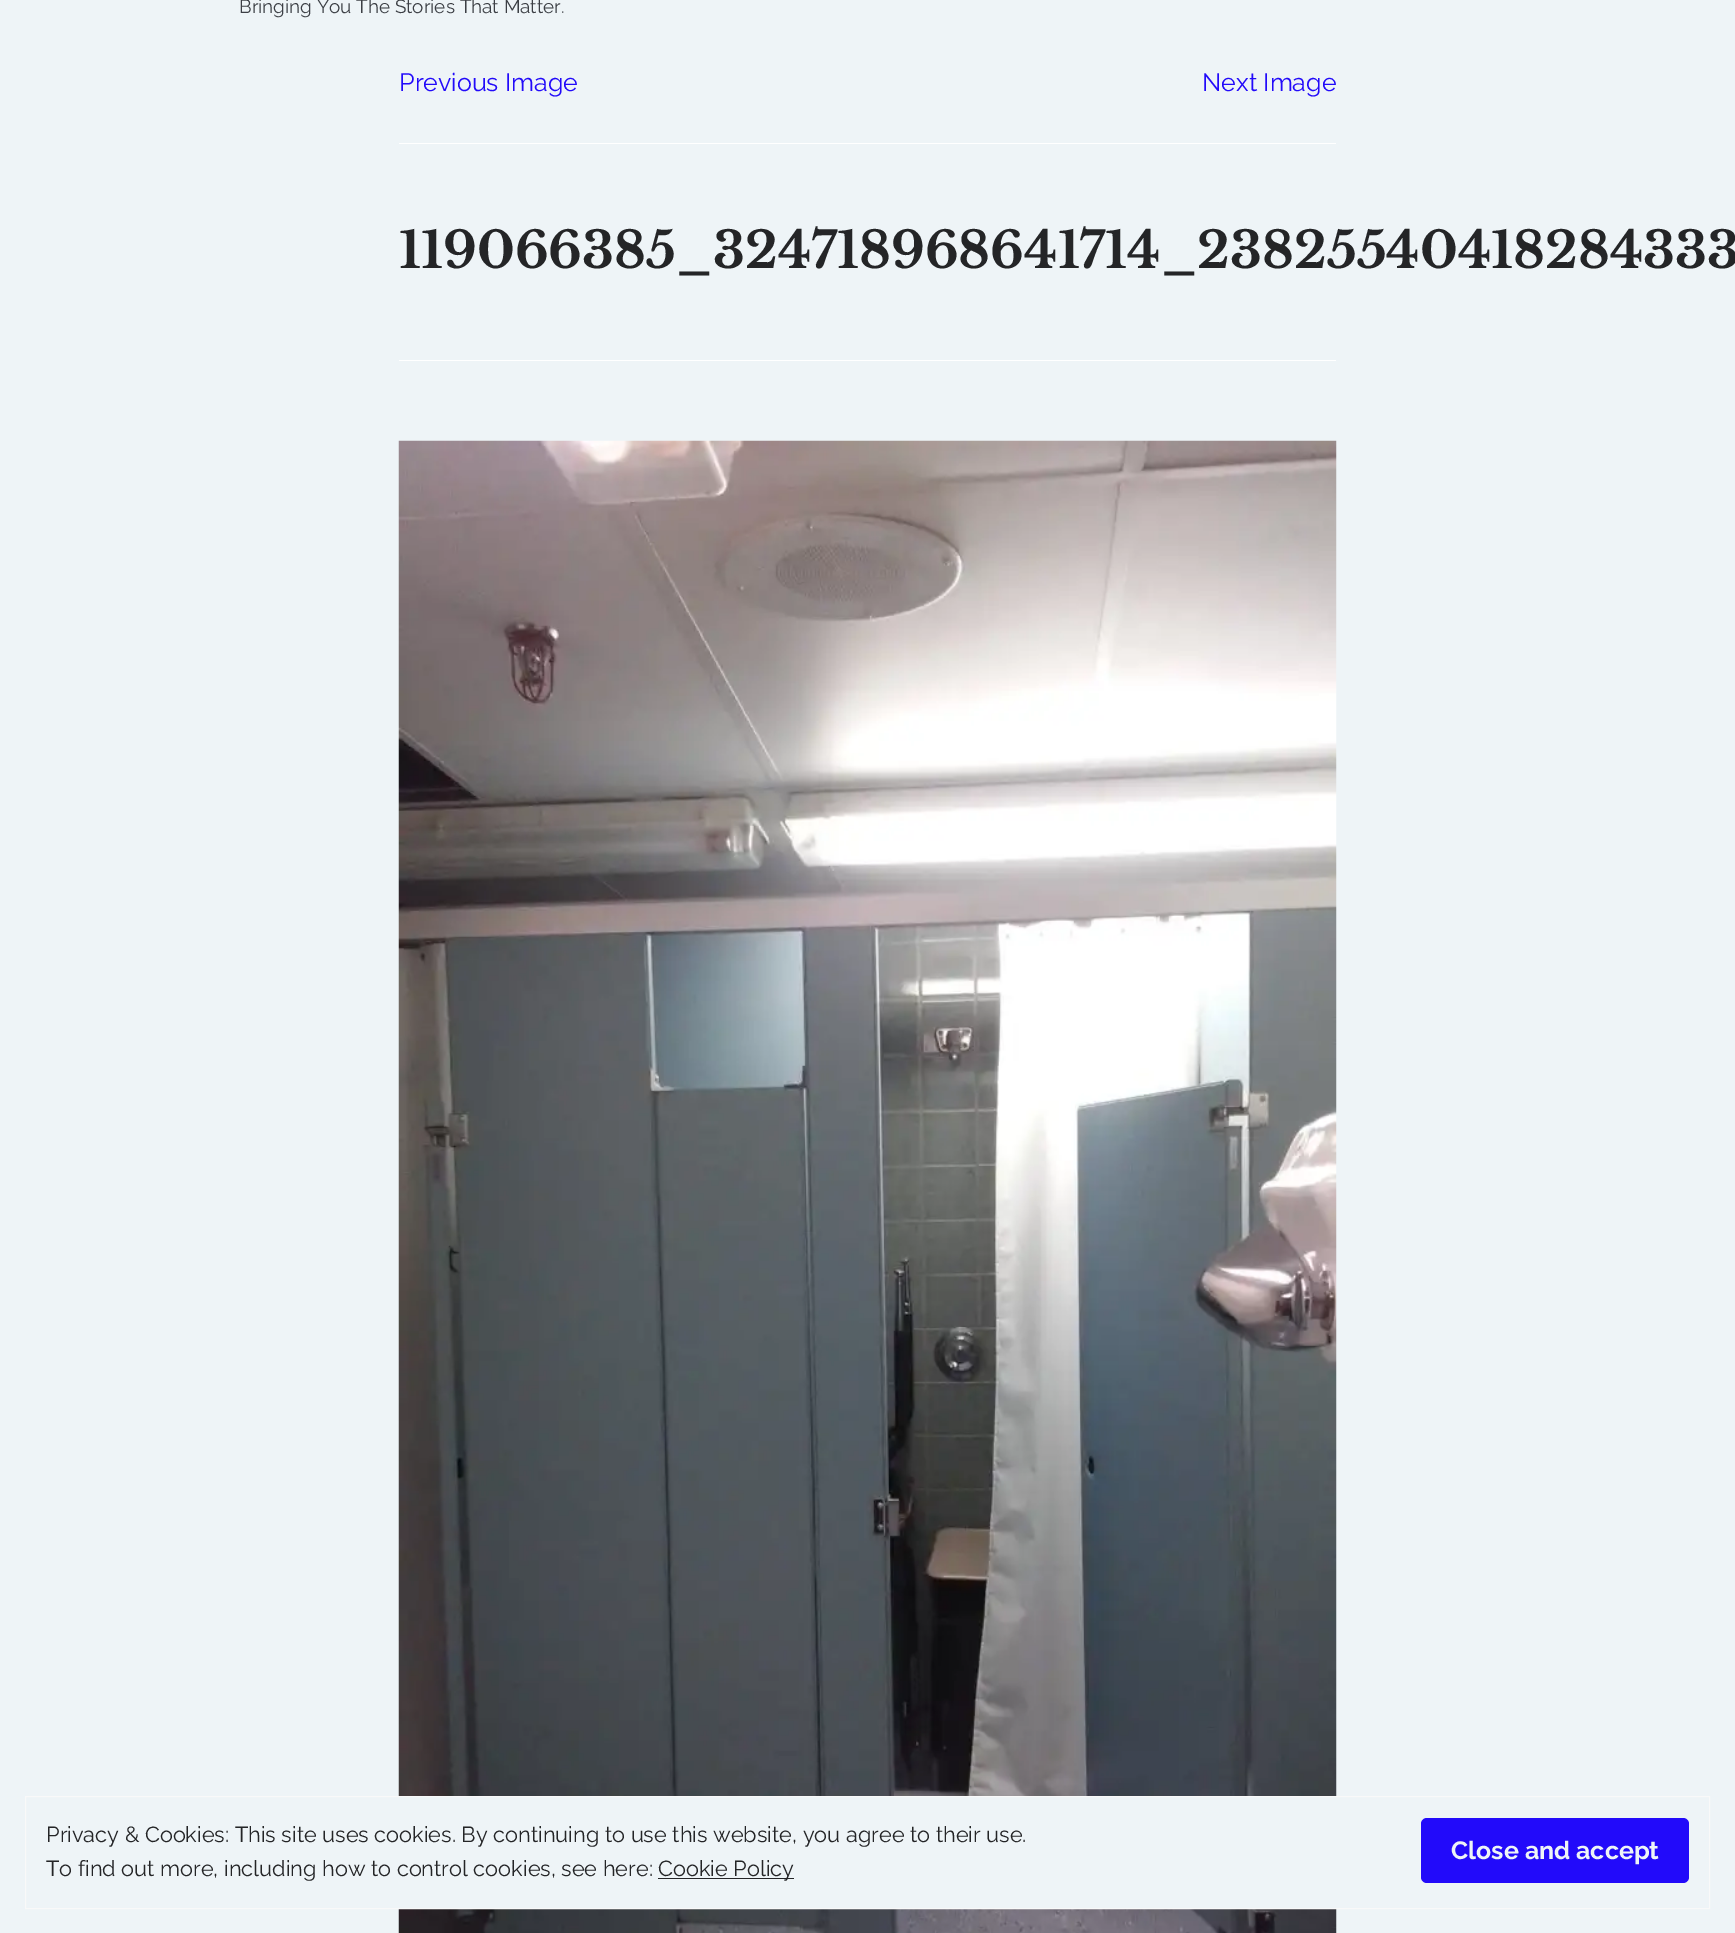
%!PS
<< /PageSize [1735 1933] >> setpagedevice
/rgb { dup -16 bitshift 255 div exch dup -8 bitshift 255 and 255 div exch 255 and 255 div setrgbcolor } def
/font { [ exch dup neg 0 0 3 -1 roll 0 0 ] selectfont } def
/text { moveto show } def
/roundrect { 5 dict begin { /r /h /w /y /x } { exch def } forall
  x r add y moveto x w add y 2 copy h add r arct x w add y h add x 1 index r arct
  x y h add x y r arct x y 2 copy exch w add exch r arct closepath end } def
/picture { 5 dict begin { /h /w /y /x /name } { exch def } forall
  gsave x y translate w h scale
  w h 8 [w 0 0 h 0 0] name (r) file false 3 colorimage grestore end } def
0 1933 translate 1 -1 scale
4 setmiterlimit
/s1 { /Raleway-Regular 18.9 font 16#3C3F45 rgb } def
/s2 { /Raleway-Regular 25 font 16#220AFA rgb } def
/s3 { /LibreBaskerville-Bold 50.25 font 16#242527 rgb } def
/s4 { /Raleway-Regular 21.75 font 16#242527 rgb } def
/s5 { /Raleway-Bold 25 font 16#EEF4F7 rgb } def
16#EEF4F7 rgb
0 0 1735 1933 rectfill
s1
(Bringing You The Stories That Matter.) 239 13 text
s2
(Previous Image) 399 91 text
(Next Image) 1202 91 text
16#FFFFFF rgb
399 143 937 1 rectfill
s3
(119066385_324718968641714_23825540418284333) 399 268 text
16#FFFFFF rgb
399 360 937 1 rectfill
(pic1.raw) 398 440 939 1493 picture
16#EEF4F7 rgb
398 1797 939 111 rectfill
16#F9F9F9 rgb
25.5 1796.5 1684 112 rectstroke
s4
(Privacy & Cookies: This site uses cookies. By continuing to use this website, you agree to their use.) 46 1842 text
16#220AFA rgb
1421 1818 268 65 6 roundrect fill
s5
(Close and accept) 1451 1859 text
s4
(To find out more, including how to control cookies, see here:) 46 1876 text
658 1878 136 1 rectfill
(Cookie Policy) 658 1876 text
showpage
